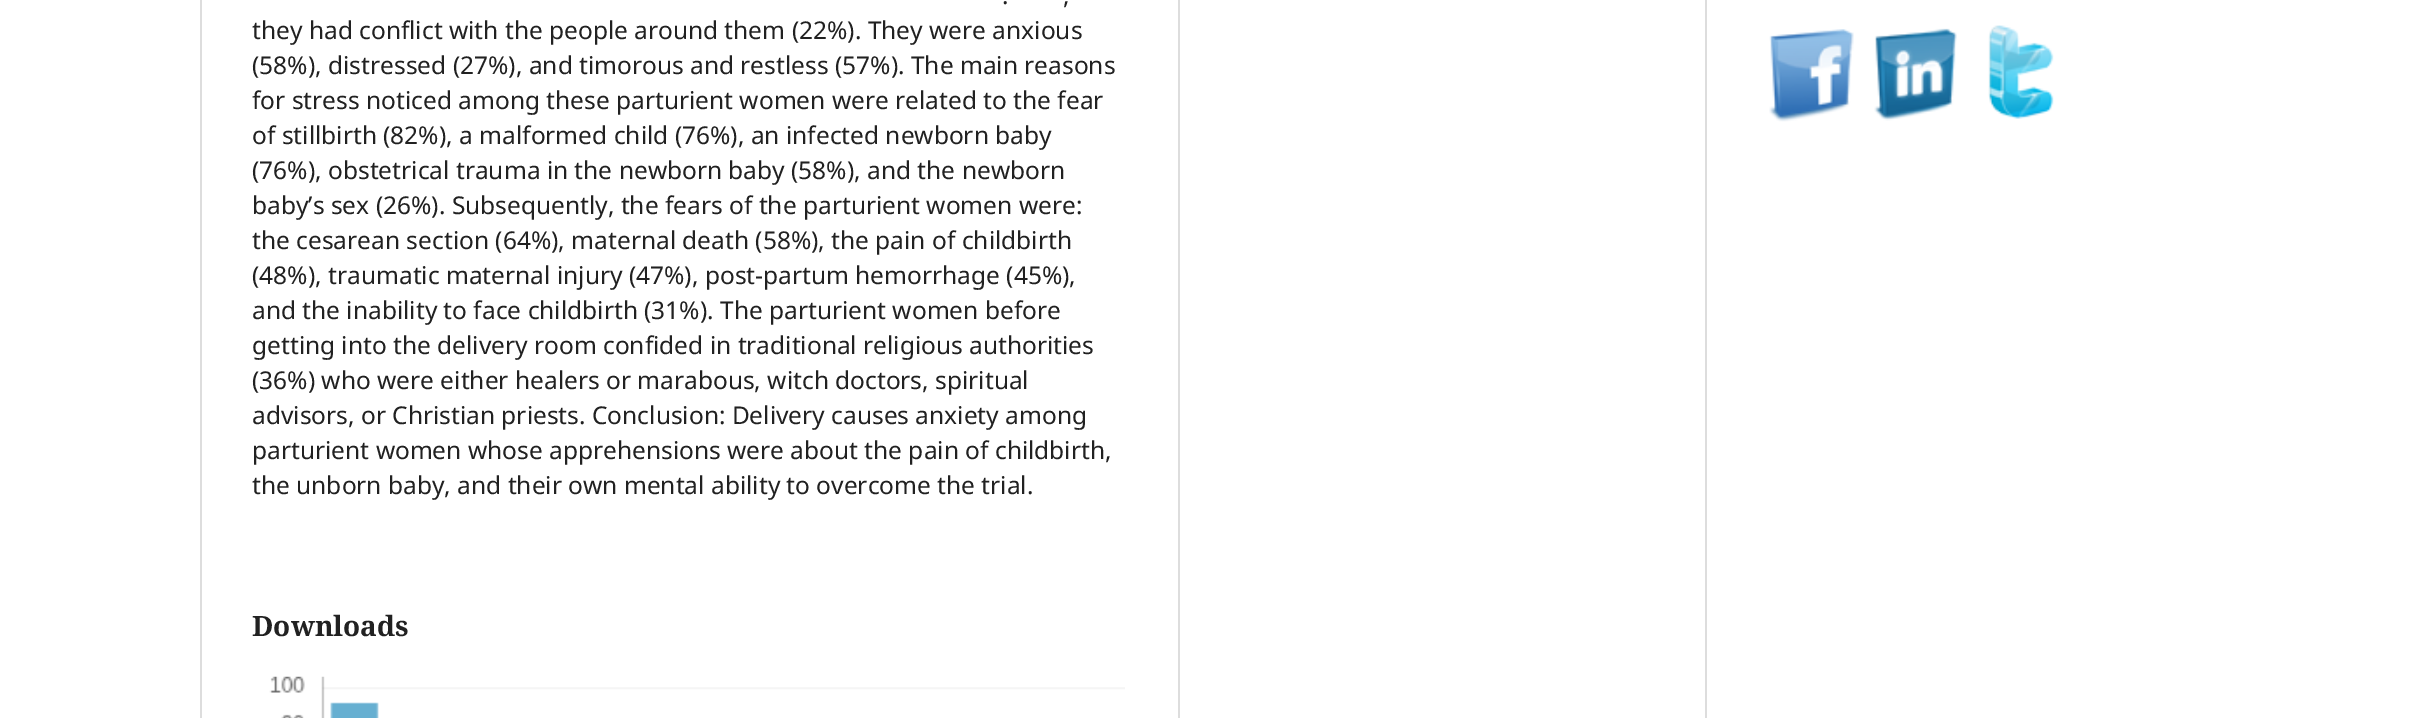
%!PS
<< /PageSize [2428 718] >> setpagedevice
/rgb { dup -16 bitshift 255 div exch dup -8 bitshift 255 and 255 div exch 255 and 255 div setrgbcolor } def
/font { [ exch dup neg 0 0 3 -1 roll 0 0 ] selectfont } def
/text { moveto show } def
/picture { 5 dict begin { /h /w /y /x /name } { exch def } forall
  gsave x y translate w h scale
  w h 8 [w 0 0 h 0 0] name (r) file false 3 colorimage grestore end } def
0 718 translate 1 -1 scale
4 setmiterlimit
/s1 { /NotoSans-Regular 24.5 font 16#212121 rgb } def
/s2 { /NotoSerif-Bold 28 font 16#212121 rgb } def
16#FFFFFF rgb
0 0 2428 718 rectfill
16#DDDDDD rgb
200 0 2 718 rectfill
1178 0 2 718 rectfill
s1
(.) 1002 4 text
(,) 1063 4 text
(they had conflict with the people around them \(22%\). They were anxious) 252 39 text
(\(58%\), distressed \(27%\), and timorous and restless \(57%\). The main reasons) 252 74 text
(for stress noticed among these parturient women were related to the fear) 252 109 text
(of stillbirth \(82%\), a malformed child \(76%\), an infected newborn baby) 252 144 text
(\(76%\), obstetrical trauma in the newborn baby \(58%\), and the newborn) 252 179 text
(baby’s sex \(26%\). Subsequently, the fears of the parturient women were:) 252 214 text
(the cesarean section \(64%\), maternal death \(58%\), the pain of childbirth) 252 249 text
(\(48%\), traumatic maternal injury \(47%\), post-partum hemorrhage \(45%\),) 252 284 text
(and the inability to face childbirth \(31%\). The parturient women before) 252 319 text
(getting into the delivery room confided in traditional religious authorities) 252 354 text
(\(36%\) who were either healers or marabous, witch doctors, spiritual) 252 389 text
(advisors, or Christian priests. Conclusion: Delivery causes anxiety among) 252 424 text
(parturient women whose apprehensions were about the pain of childbirth,) 252 459 text
(the unborn baby, and their own mental ability to overcome the trial.) 252 494 text
s2
(Downloads) 252 636 text
(pic1.raw) 269 676 856 42 picture
16#DDDDDD rgb
1705 0 2 718 rectfill
(pic2.raw) 1769 29 85 93 picture
(pic3.raw) 1874 28 83 93 picture
(pic4.raw) 1988 25 66 94 picture
showpage
